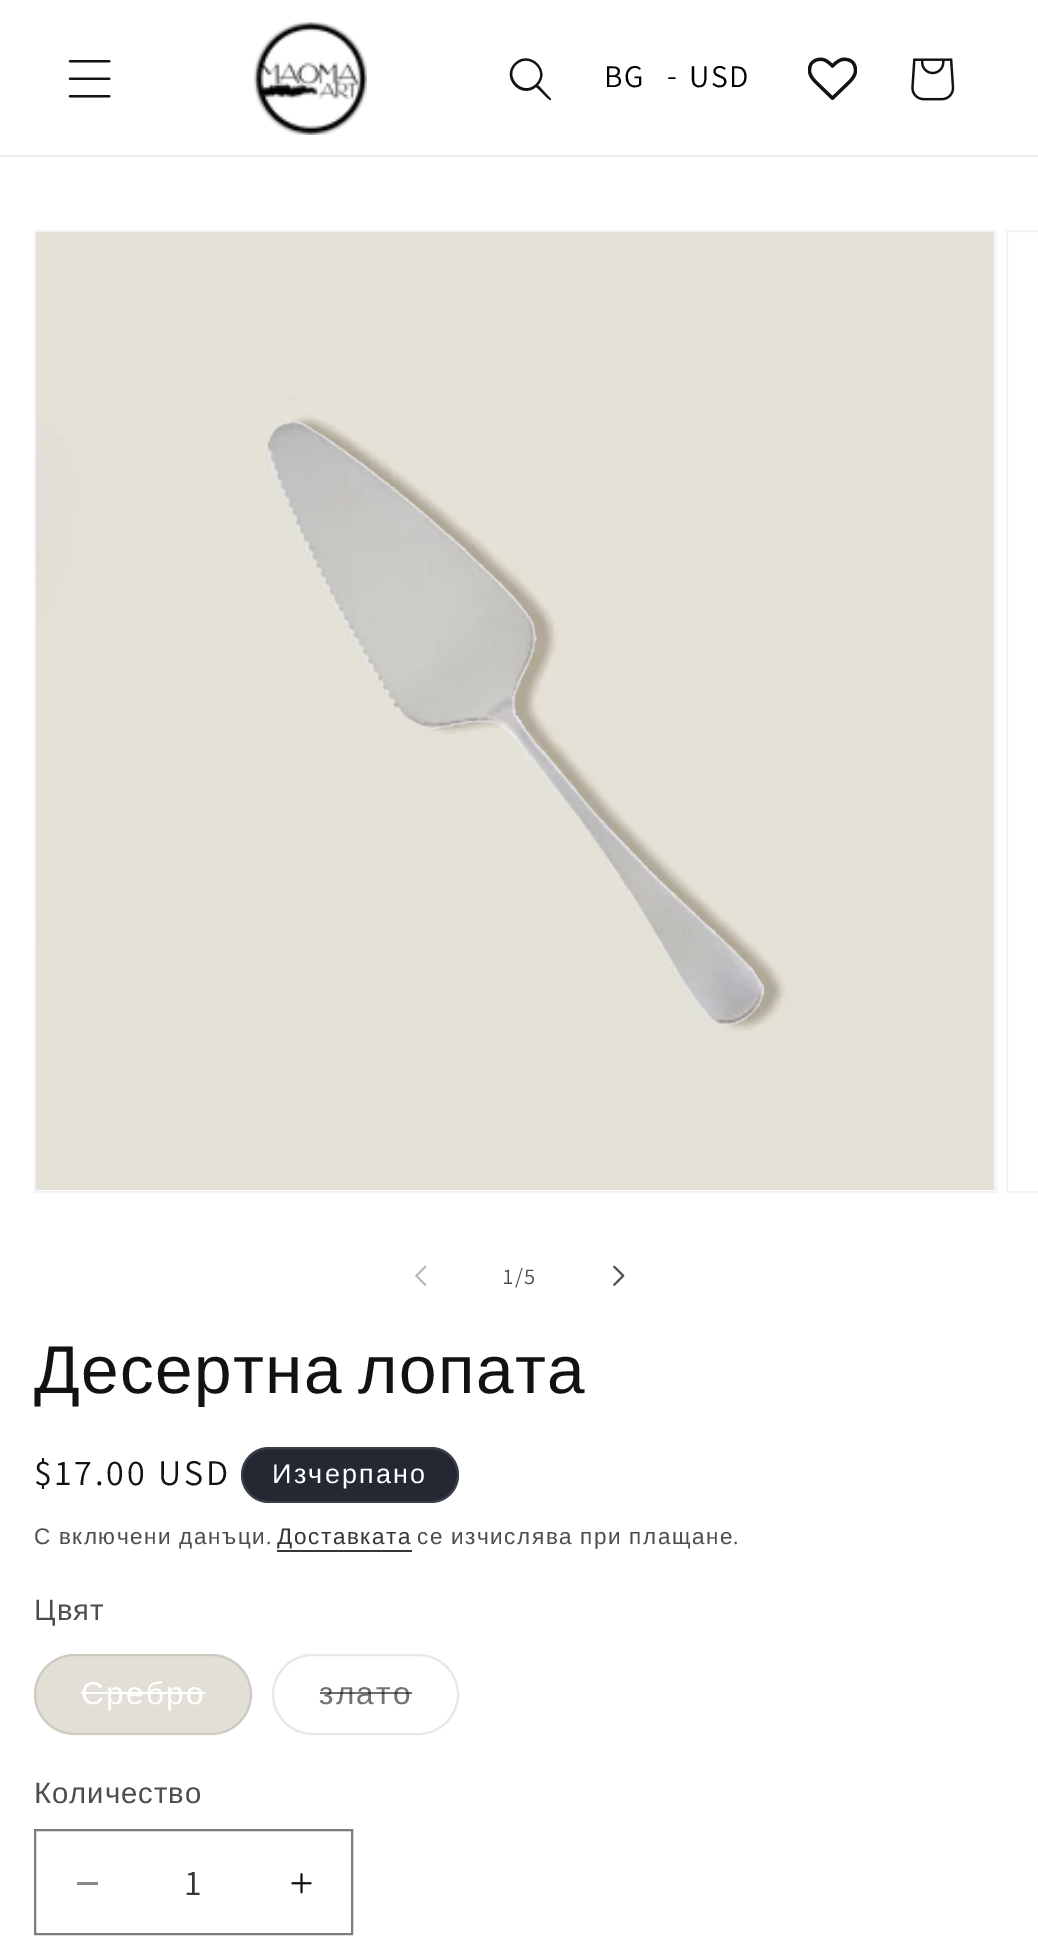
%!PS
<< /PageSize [1038 1945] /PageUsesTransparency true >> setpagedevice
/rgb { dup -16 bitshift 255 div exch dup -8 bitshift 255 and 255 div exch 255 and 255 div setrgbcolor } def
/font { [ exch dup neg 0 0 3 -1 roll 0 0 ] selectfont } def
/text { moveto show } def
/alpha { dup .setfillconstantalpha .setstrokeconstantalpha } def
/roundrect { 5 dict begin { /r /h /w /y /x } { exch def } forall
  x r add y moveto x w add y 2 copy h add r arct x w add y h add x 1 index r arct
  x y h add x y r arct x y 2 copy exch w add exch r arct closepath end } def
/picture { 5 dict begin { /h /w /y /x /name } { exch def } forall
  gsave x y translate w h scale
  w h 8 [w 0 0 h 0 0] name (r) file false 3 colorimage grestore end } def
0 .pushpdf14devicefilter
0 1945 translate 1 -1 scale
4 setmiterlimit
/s1 { /Assistant-Regular 36 font 16#363636 rgb } def
16#FFFFFF rgb
0 0 1038 1945 rectfill
16#ECECEC rgb
0 155 1038 2 rectfill
(pic1.raw) 68 60 43 38 picture
(pic2.raw) 254 22 113 113 picture
16#121212 rgb
536 84 moveto 523 97 504 77 516 65 curveto 529 52 549 71 536 84 curveto closepath 536 87 moveto 521 100 500 77 515 63 curveto 529 49 552 70 538 85 curveto 551 99 lineto 551 100 lineto 549 101 538 88 536 87 curveto closepath eofill
/Assistant-Regular 31.5 font
16#000000 rgb
604 87 moveto 1.4 0 (BG) ashow
667 86 moveto 1.4 0 (-) ashow
689 87 moveto 1.4 0 (USD) ashow
(pic3.raw) 808 57 49 43 picture
(pic4.raw) 911 58 44 43 picture
16#F3F3F3 rgb
2 setlinewidth
35 231 961 961 rectstroke
(pic5.raw) 36 232 959 958 picture
1007 231 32 961 rectstroke
(pic6.raw) 415 1265 12 21 picture
/Assistant-Regular 22.5 font
16#4D4D4D rgb
503 1284 moveto 1.6 0 (1/5) ashow
(pic7.raw) 613 1265 12 21 picture
/LiberationSans-Regular 67.5 font
16#121212 rgb
34 1393 moveto -5 0 32 1.4 0 (Десертна лопата) awidthshow
/Assistant-Regular 36 font
34 1485 moveto 3 0 ($17.00 USD) ashow
16#242833 rgb
241 1447 218 56 28 roundrect fill
0.1 alpha
16#FFFFFF rgb
242 1448 216 54 27 roundrect stroke
/LiberationSans-Regular 27 font
1 alpha
272 1483 moveto 2.25 0 (Изчерпано) ashow
/LiberationSans-Regular 22.5 font
16#4D4D4D rgb
34 1544 moveto -1 0 32 1.6 0 (С включени данъци) awidthshow
/Assistant-Regular 22.5 font
266 1544 moveto 1.6 0 (.) ashow
/LiberationSans-Regular 22.5 font
16#363636 rgb
277 1544 moveto 1.6 0 (Доставката) ashow
277 1550 135 2 rectfill
16#4D4D4D rgb
417 1544 moveto -1 0 32 1.6 0 (се изчислява при плащане) awidthshow
/Assistant-Regular 22.5 font
733 1544 moveto 1.6 0 (.) ashow
/LiberationSans-Regular 29.25 font
34 1620 moveto 1 0 (Цвят) ashow
16#E2DFD6 rgb
34 1654 218 81 40.5 roundrect fill
0.1 alpha
16#121212 rgb
35 1655 216 79 39.5 roundrect stroke
/LiberationSans-Regular 31.5 font
1 alpha
16#FFFFFF rgb
81 1704 moveto 2.25 0 (Сребро) ashow
81 1692 124 2 rectfill
16#E7E7E7 rgb
273 1655 185 79 39.5 roundrect stroke
16#717171 rgb
319 1704 moveto 2.25 0 (злато) ashow
0.6 alpha
16#121212 rgb
320 1692 92 2 rectfill
/LiberationSans-Regular 29.25 font
1 alpha
16#4D4D4D rgb
34 1803 moveto 1 0 (Количество) ashow
16#898989 rgb
77 1882 21 3 rectfill
(pic8.raw) 291 1873 21 21 picture
16#7D7D7D rgb
35 1830 317 104 rectstroke
s1
(1) 185 1895 text
.poppdf14devicefilter showpage
